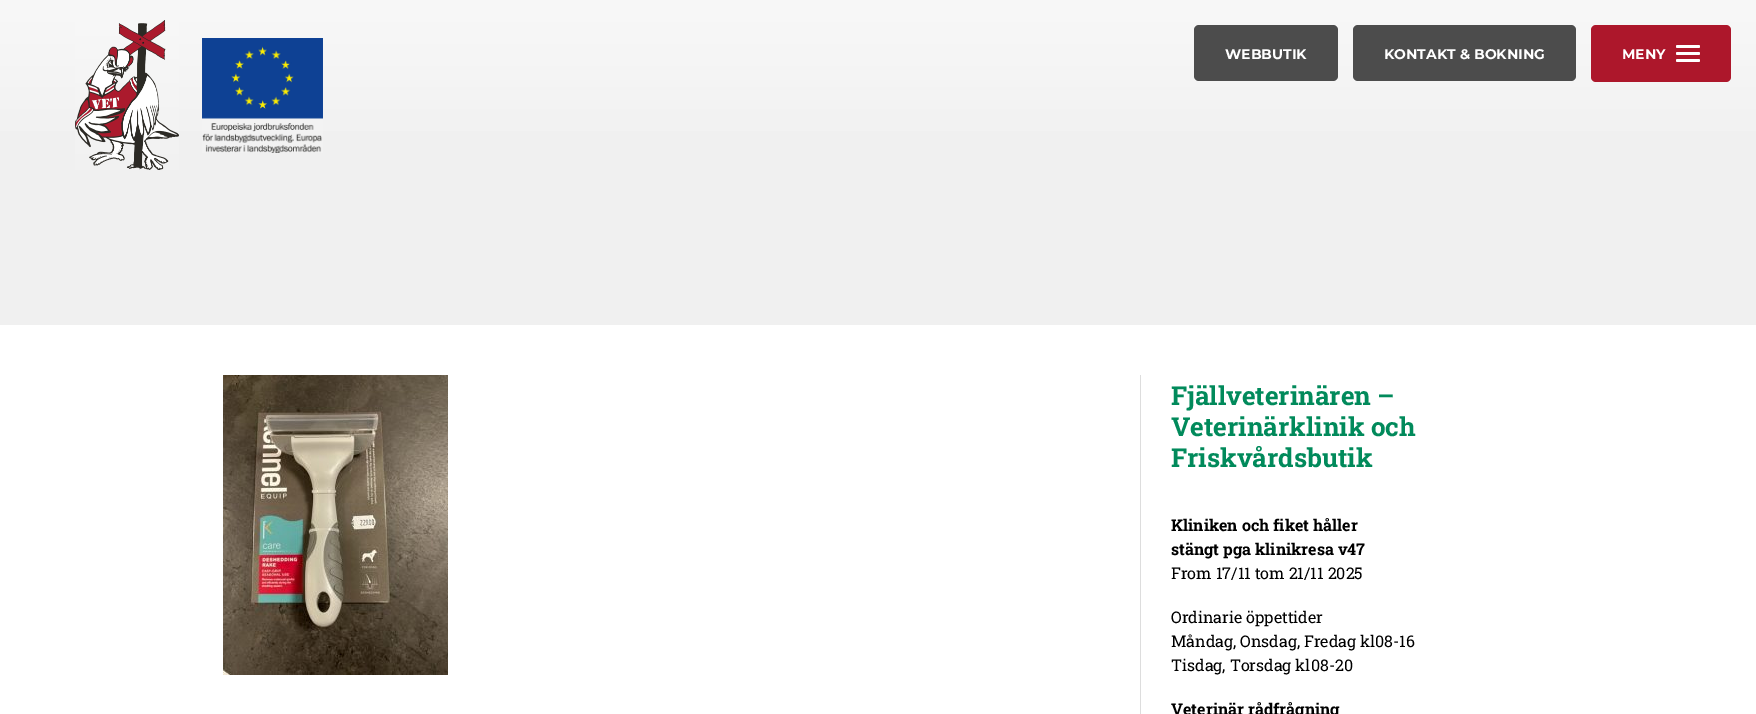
%!PS
<< /PageSize [1756 714] >> setpagedevice
/rgb { dup -16 bitshift 255 div exch dup -8 bitshift 255 and 255 div exch 255 and 255 div setrgbcolor } def
/font { [ exch dup neg 0 0 3 -1 roll 0 0 ] selectfont } def
/text { moveto show } def
/roundrect { 5 dict begin { /r /h /w /y /x } { exch def } forall
  x r add y moveto x w add y 2 copy h add r arct x w add y h add x 1 index r arct
  x y h add x y r arct x y 2 copy exch w add exch r arct closepath end } def
/picture { 5 dict begin { /h /w /y /x /name } { exch def } forall
  gsave x y translate w h scale
  w h 8 [w 0 0 h 0 0] name (r) file false 3 colorimage grestore end } def
0 714 translate 1 -1 scale
4 setmiterlimit
/s1 { /Montserrat-Thin 14 font 16#FFFFFF rgb } def
/s2 { /RobotoSlab-Bold 26 font 16#018A5B rgb } def
/s3 { /RobotoSlab-Bold 16 font 16#000000 rgb } def
/s4 { /RobotoSlab-Regular 16 font 16#000000 rgb } def
16#F0F0F0 rgb
0 0 1756 714 rectfill
gsave 0 0 moveto 1756 0 lineto 1756 131 lineto 0 131 lineto closepath clip newpath
<< /ShadingType 2 /ColorSpace /DeviceRGB /Coords [878 0 878 190] /Extend [true true] /Function << /FunctionType 2 /Domain [0 1] /C0 [0.973 0.973 0.973] /C1 [0.941 0.941 0.941] /N 1 >> >> shfill grestore
(pic1.raw) 75 20 104 150 picture
(pic2.raw) 202 38 121 115 picture
16#4C4C4C rgb
1194 25 144 56 5 roundrect fill
s1
(WEBBUTIK) 1225 59 text
16#4C4C4C rgb
1353 25 223 56 5 roundrect fill
s1
(KONTAKT & BOKNING) 1384 59 text
16#AD172B rgb
1591 25 140 57 5 roundrect fill
s1
(MENY) 1622 59 text
1676 45 24 3 1.5 roundrect fill
1676 52 24 3 1.5 roundrect fill
1676 59 24 3 1.5 roundrect fill
0 325 1756 389 rectfill
(pic3.raw) 223 375 225 300 picture
16#DDDDDD rgb
1140 375 1 339 rectfill
s2
(Fjällveterinären –) 1171 405 text
(Veterinärklinik och) 1171 436 text
(Friskvårdsbutik) 1171 467 text
s3
(Kliniken och fiket håller) 1171 531 text
(stängt pga klinikresa v47) 1171 555 text
s4
(From 17/11 tom 21/11 2025) 1171 579 text
(Ordinarie öppettider) 1171 623 text
(Måndag, Onsdag, Fredag kl08-16) 1171 647 text
(Tisdag, Torsdag kl08-20) 1171 671 text
s3
(Veterinär rådfrågning) 1171 715 text
showpage
